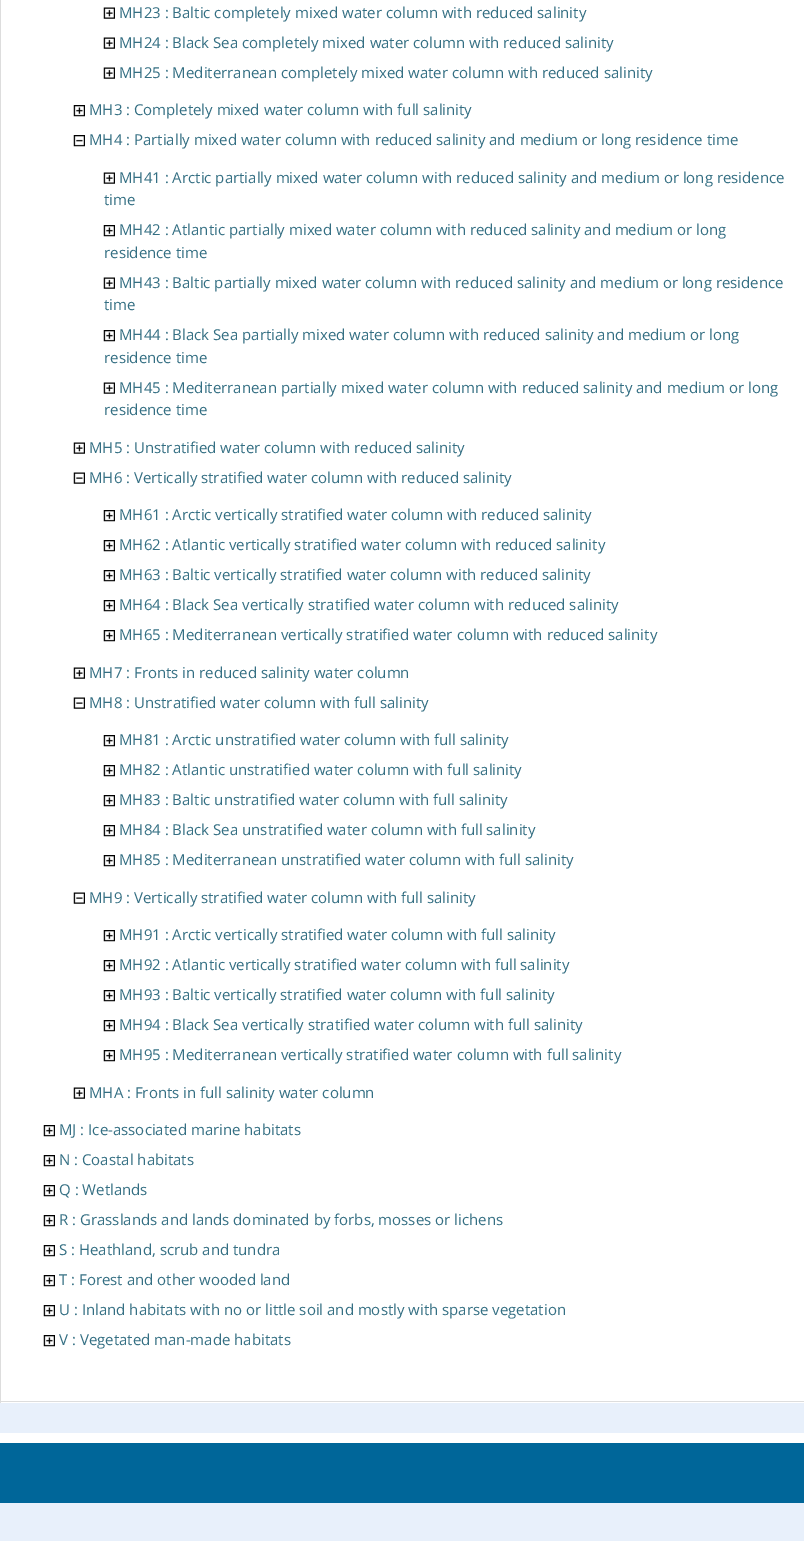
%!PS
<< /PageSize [804 1541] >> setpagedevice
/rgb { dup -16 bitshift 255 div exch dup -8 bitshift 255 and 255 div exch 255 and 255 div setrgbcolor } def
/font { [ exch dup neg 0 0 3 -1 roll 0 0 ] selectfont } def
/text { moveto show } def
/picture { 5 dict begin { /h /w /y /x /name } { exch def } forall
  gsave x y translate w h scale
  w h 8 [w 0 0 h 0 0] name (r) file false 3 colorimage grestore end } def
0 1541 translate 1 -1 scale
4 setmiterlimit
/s1 { /OpenSans-Regular 15 font 16#346F83 rgb } def
16#E8F0FB rgb
0 0 804 1541 rectfill
16#FFFFFF rgb
1 0 803 1403 rectfill
16#DDDDDD rgb
0 1401 804 1 rectfill
0 0 1 1403 rectfill
(pic1.raw) 103 7 12 12 picture
s1
(MH23 : Baltic completely mixed water column with reduced salinity) 119 18 text
(pic1.raw) 103 37 12 12 picture
(MH24 : Black Sea completely mixed water column with reduced salinity) 119 48 text
(pic1.raw) 103 67 12 12 picture
(MH25 : Mediterranean completely mixed water column with reduced salinity) 119 78 text
(pic2.raw) 73 105 12 12 picture
(MH3 : Completely mixed water column with full salinity) 89 115 text
(pic3.raw) 73 135 12 12 picture
(MH4 : Partially mixed water column with reduced salinity and medium or long residence time) 89 145 text
(pic1.raw) 103 172 12 12 picture
(MH41 : Arctic partially mixed water column with reduced salinity and medium or long residence) 119 183 text
(time) 104 205 text
(pic4.raw) 103 225 12 12 picture
(MH42 : Atlantic partially mixed water column with reduced salinity and medium or long) 119 235 text
(residence time) 104 258 text
(pic1.raw) 103 277 12 12 picture
(MH43 : Baltic partially mixed water column with reduced salinity and medium or long residence) 119 288 text
(time) 104 310 text
(pic4.raw) 103 330 12 12 picture
(MH44 : Black Sea partially mixed water column with reduced salinity and medium or long) 119 340 text
(residence time) 104 363 text
(pic1.raw) 103 382 12 12 picture
(MH45 : Mediterranean partially mixed water column with reduced salinity and medium or long) 119 393 text
(residence time) 104 415 text
(pic5.raw) 73 442 12 12 picture
(MH5 : Unstratified water column with reduced salinity) 89 453 text
(pic6.raw) 73 472 12 12 picture
(MH6 : Vertically stratified water column with reduced salinity) 89 483 text
(pic4.raw) 103 510 12 12 picture
(MH61 : Arctic vertically stratified water column with reduced salinity) 119 520 text
(pic4.raw) 103 540 12 12 picture
(MH62 : Atlantic vertically stratified water column with reduced salinity) 119 550 text
(pic4.raw) 103 570 12 12 picture
(MH63 : Baltic vertically stratified water column with reduced salinity) 119 580 text
(pic4.raw) 103 600 12 12 picture
(MH64 : Black Sea vertically stratified water column with reduced salinity) 119 610 text
(pic4.raw) 103 630 12 12 picture
(MH65 : Mediterranean vertically stratified water column with reduced salinity) 119 640 text
(pic5.raw) 73 667 12 12 picture
(MH7 : Fronts in reduced salinity water column) 89 678 text
(pic6.raw) 73 697 12 12 picture
(MH8 : Unstratified water column with full salinity) 89 708 text
(pic4.raw) 103 735 12 12 picture
(MH81 : Arctic unstratified water column with full salinity) 119 745 text
(pic4.raw) 103 765 12 12 picture
(MH82 : Atlantic unstratified water column with full salinity) 119 775 text
(pic4.raw) 103 795 12 12 picture
(MH83 : Baltic unstratified water column with full salinity) 119 805 text
(pic4.raw) 103 825 12 12 picture
(MH84 : Black Sea unstratified water column with full salinity) 119 835 text
(pic4.raw) 103 855 12 12 picture
(MH85 : Mediterranean unstratified water column with full salinity) 119 865 text
(pic6.raw) 73 892 12 12 picture
(MH9 : Vertically stratified water column with full salinity) 89 903 text
(pic4.raw) 103 930 12 12 picture
(MH91 : Arctic vertically stratified water column with full salinity) 119 940 text
(pic4.raw) 103 960 12 12 picture
(MH92 : Atlantic vertically stratified water column with full salinity) 119 970 text
(pic4.raw) 103 990 12 12 picture
(MH93 : Baltic vertically stratified water column with full salinity) 119 1000 text
(pic4.raw) 103 1020 12 12 picture
(MH94 : Black Sea vertically stratified water column with full salinity) 119 1030 text
(pic4.raw) 103 1050 12 12 picture
(MH95 : Mediterranean vertically stratified water column with full salinity) 119 1060 text
(pic5.raw) 73 1087 12 12 picture
(MHA : Fronts in full salinity water column) 89 1098 text
(pic2.raw) 43 1125 12 12 picture
(MJ : Ice-associated marine habitats) 59 1135 text
(pic2.raw) 43 1155 12 12 picture
(N : Coastal habitats) 59 1165 text
(pic2.raw) 43 1185 12 12 picture
(Q : Wetlands) 59 1195 text
(pic2.raw) 43 1215 12 12 picture
(R : Grasslands and lands dominated by forbs, mosses or lichens) 59 1225 text
(pic2.raw) 43 1245 12 12 picture
(S : Heathland, scrub and tundra) 59 1255 text
(pic2.raw) 43 1275 12 12 picture
(T : Forest and other wooded land) 59 1285 text
(pic2.raw) 43 1305 12 12 picture
(U : Inland habitats with no or little soil and mostly with sparse vegetation) 59 1315 text
(pic2.raw) 43 1335 12 12 picture
(V : Vegetated man-made habitats) 59 1345 text
16#006699 rgb
0 1443 804 60 rectfill
16#FFFFFF rgb
0 1433 804 10 rectfill
showpage
